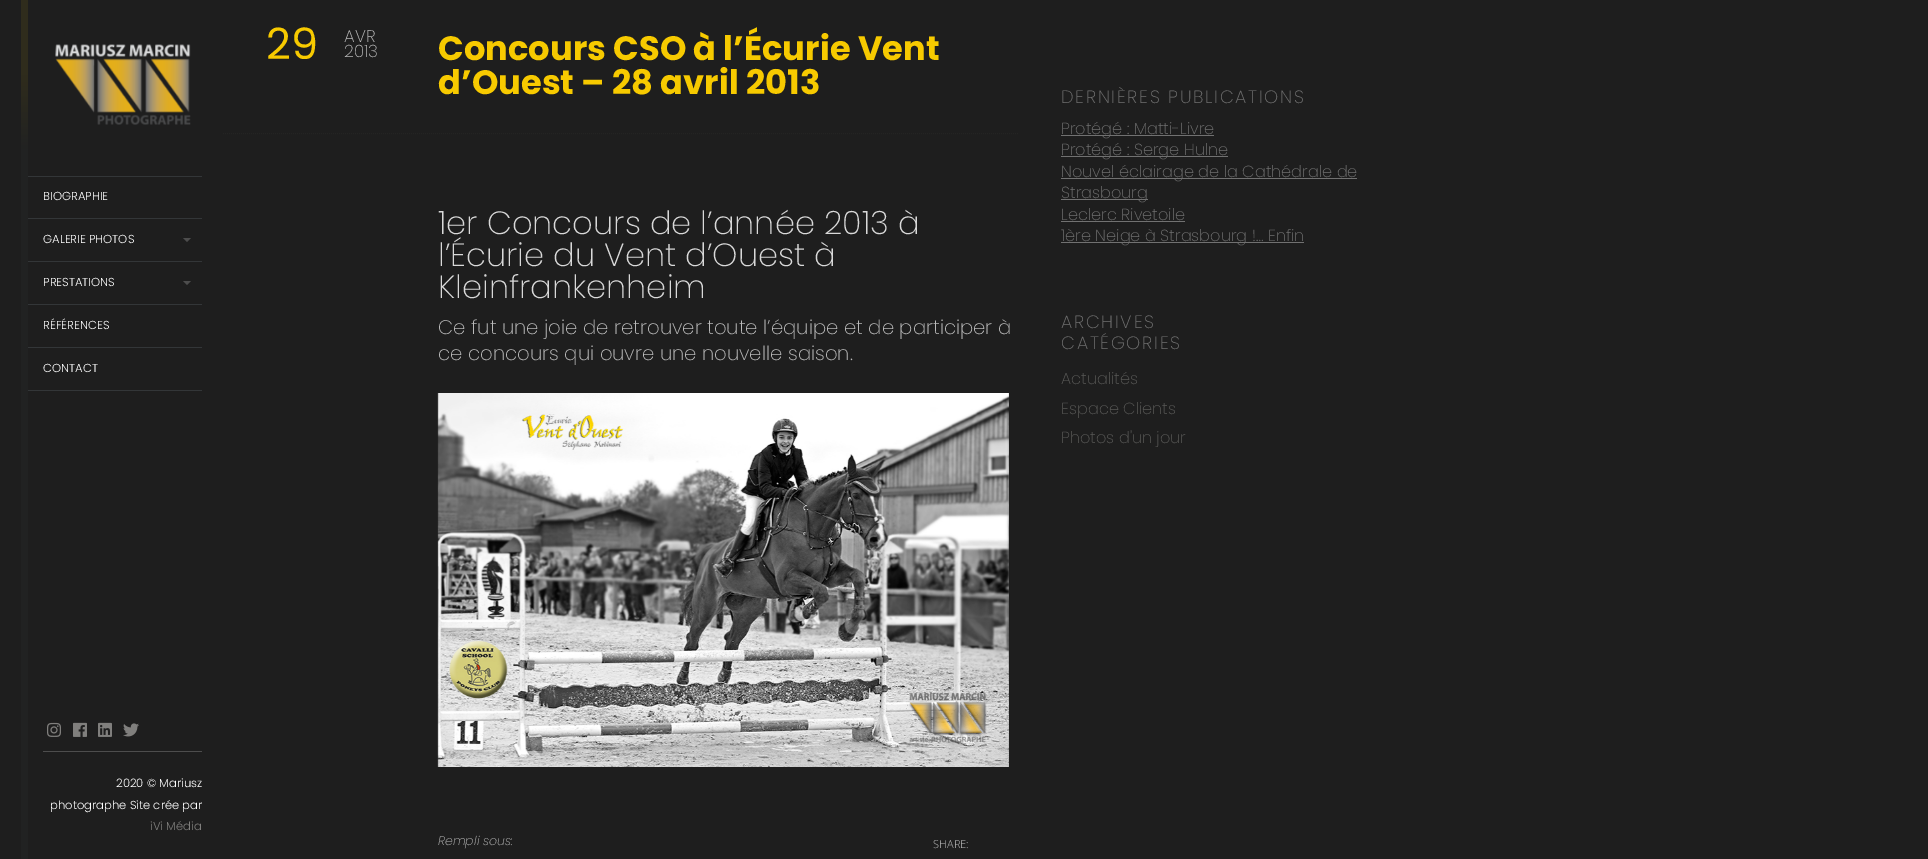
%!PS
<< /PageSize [1928 859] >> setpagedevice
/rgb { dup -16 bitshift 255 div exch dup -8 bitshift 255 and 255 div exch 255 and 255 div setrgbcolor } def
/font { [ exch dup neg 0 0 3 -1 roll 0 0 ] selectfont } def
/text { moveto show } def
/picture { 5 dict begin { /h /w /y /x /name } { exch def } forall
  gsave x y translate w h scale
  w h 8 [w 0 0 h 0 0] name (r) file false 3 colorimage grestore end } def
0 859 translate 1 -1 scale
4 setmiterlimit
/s1 { /Poppins-Light 11.6 font 16#FFFFFF rgb } def
/s2 { /Poppins-Light 11.6 font 16#807F7D rgb } def
/s3 { /Poppins-Regular 43 font 16#F7CA00 rgb } def
/s4 { /Poppins-ExtraLight 17 font 16#BABABA rgb } def
/s5 { /Poppins-Bold 33.75 font 16#F7CA00 rgb } def
/s6 { /Poppins-ExtraLight 32.2 font 16#D9D9D9 rgb } def
/s7 { /Poppins-ExtraLight 19.65 font 16#BABABA rgb } def
/s8 { /Poppins-ExtraLightItalic 12.5 font 16#BABABA rgb } def
/s9 { /OpenSans-Light 11 font 16#BABABA rgb } def
/s10 { /Poppins-ExtraLight 16.1 font 16#717171 rgb } def
/s11 { /Poppins-ExtraLight 16.1 font 16#595957 rgb } def
16#1E1E1E rgb
0 0 1928 859 rectfill
16#333638 rgb
21 176 181 1 rectfill
21 218 181 1 rectfill
21 261 181 1 rectfill
21 304 181 1 rectfill
21 347 181 1 rectfill
21 390 181 1 rectfill
16#212222 rgb
21 150 7 709 rectfill
gsave 21 0 moveto 28 0 lineto 28 150 lineto 21 150 lineto closepath clip newpath
<< /ShadingType 2 /ColorSpace /DeviceRGB /Coords [21 0 22 150] /Extend [true true] /Function << /FunctionType 3 /Domain [0 1] /Functions [<< /FunctionType 2 /Domain [0 1] /C0 [0.184 0.173 0.11] /C1 [0.184 0.173 0.11] /N 1 >> << /FunctionType 2 /Domain [0 1] /C0 [0.184 0.173 0.11] /C1 [0.129 0.133 0.133] /N 1 >>] /Bounds [0.5] /Encode [0 1 0 1] >> >> shfill grestore
(pic1.raw) 55 44 136 81 picture
s1
(BIOGRAPHIE) 43 200 text
(GALERIE PHOTOS) 43 243 text
16#4D4D4D rgb
183 238 moveto 191 238 lineto 187 242 lineto closepath fill
s1
(PRESTATIONS) 43 286 text
16#4D4D4D rgb
183 281 moveto 191 281 lineto 187 285 lineto closepath fill
s1
(RÉFÉRENCES) 43 329 text
(CONTACT) 43 372 text
16#4D4D4D rgb
43 751 159 1 rectfill
(pic2.raw) 47 722 14 15 picture
(pic3.raw) 73 722 14 15 picture
(pic4.raw) 98 722 14 15 picture
(pic5.raw) 123 723 16 14 picture
s1
(2020 © Mariusz) 116 787 text
(photographe Site crée par) 50 809 text
s2
(iVi Média) 150 830 text
s3
(29) 266 59 text
s4
(AVR) 344 42 text
(2013) 344 57 text
s5
(Concours CSO à l’Écurie Vent) 438 60 text
(d’Ouest – 28 avril 2013) 438 94 text
16#242423 rgb
[1 1] 0 setdash
223 133.5 moveto 1018 133.5 lineto stroke
s6
(1er Concours de l’année 2013 à) 438 234 text
(l’Écurie du Vent d’Ouest à) 438 266 text
(Kleinfrankenheim) 438 298 text
s7
(Ce fut une joie de retrouver toute l’équipe et de participer à) 438 334 text
(ce concours qui ouvre une nouvelle saison.) 438 360 text
(pic6.raw) 437 393 572 374 picture
s8
(Rempli sous:) 438 845 text
s9
(SHARE:) 933 848 text
/Poppins-ExtraLight 17.9 font
16#717171 rgb
1061 103 moveto 1.75 0 (DERNIÈRES PUBLICATIONS) ashow
1061 135 153 1 rectfill
s10
(Protégé : Matti-Livre) 1061 134 text
1061 156 167 1 rectfill
(Protégé : Serge Hulne) 1061 155 text
1061 178 296 1 rectfill
(Nouvel éclairage de la Cathédrale de) 1061 177 text
1061 199 87 1 rectfill
(Strasbourg) 1061 198 text
(Leclerc Rivetoile) 1061 220 text
1061 221 124 1 rectfill
1061 242 243 1 rectfill
(1ère Neige à Strasbourg !… Enfin) 1061 241 text
/Poppins-ExtraLight 17.9 font
1061 328 moveto 1.75 0 (ARCHIVES) ashow
1061 349 moveto 1.75 0 (CATÉGORIES) ashow
s11
(Actualités) 1061 384 text
(Espace Clients) 1061 414 text
(Photos d'un jour) 1061 443 text
showpage
